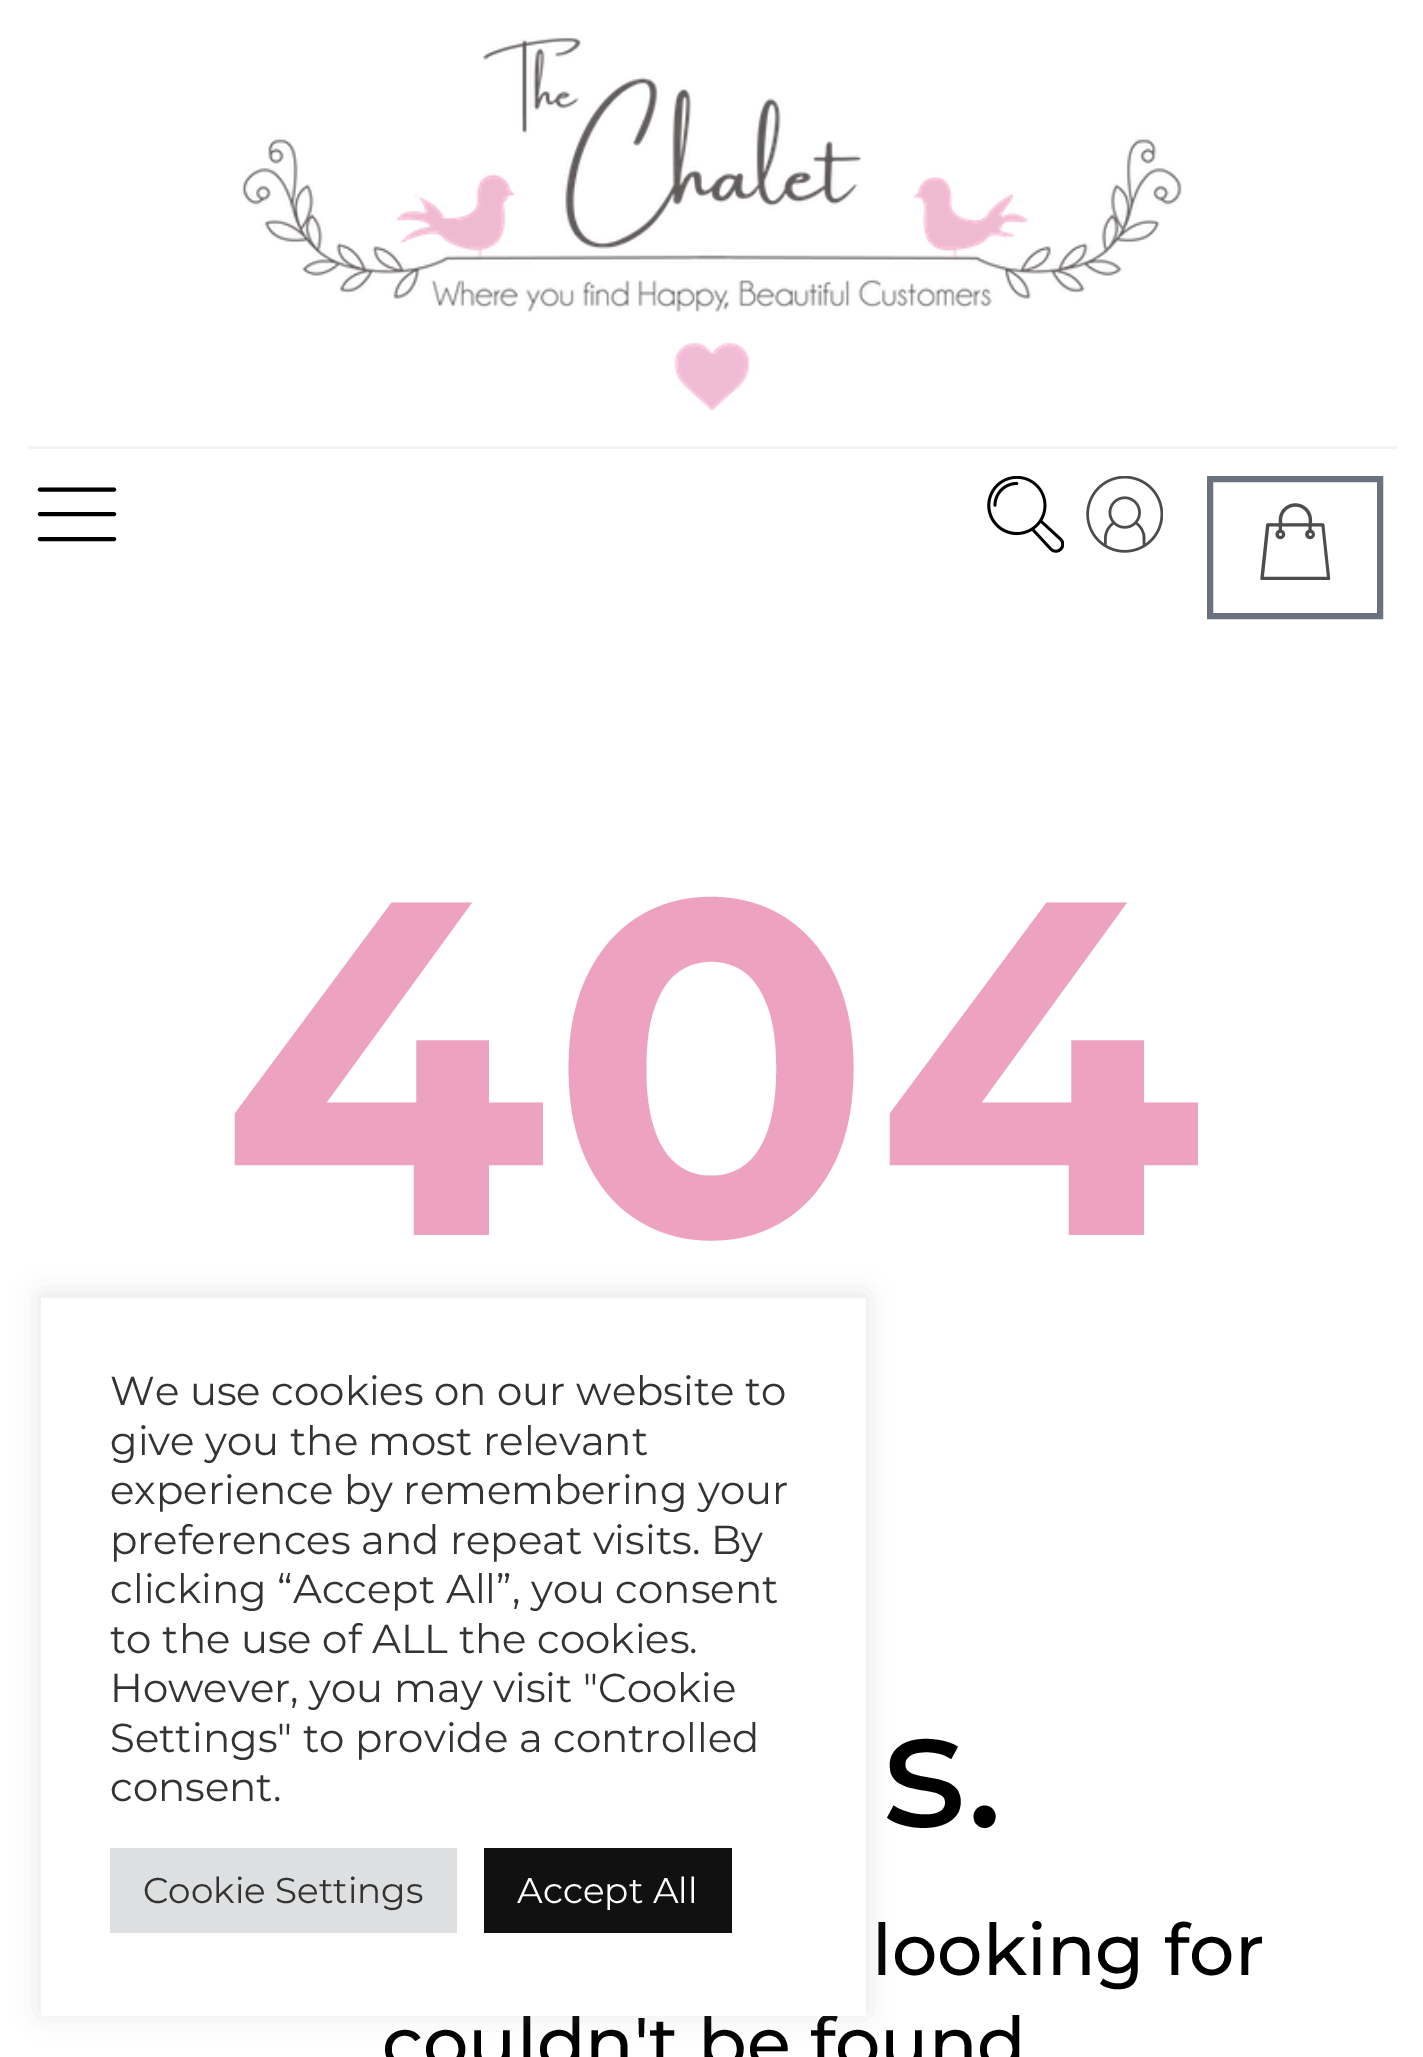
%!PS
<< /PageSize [1423 2057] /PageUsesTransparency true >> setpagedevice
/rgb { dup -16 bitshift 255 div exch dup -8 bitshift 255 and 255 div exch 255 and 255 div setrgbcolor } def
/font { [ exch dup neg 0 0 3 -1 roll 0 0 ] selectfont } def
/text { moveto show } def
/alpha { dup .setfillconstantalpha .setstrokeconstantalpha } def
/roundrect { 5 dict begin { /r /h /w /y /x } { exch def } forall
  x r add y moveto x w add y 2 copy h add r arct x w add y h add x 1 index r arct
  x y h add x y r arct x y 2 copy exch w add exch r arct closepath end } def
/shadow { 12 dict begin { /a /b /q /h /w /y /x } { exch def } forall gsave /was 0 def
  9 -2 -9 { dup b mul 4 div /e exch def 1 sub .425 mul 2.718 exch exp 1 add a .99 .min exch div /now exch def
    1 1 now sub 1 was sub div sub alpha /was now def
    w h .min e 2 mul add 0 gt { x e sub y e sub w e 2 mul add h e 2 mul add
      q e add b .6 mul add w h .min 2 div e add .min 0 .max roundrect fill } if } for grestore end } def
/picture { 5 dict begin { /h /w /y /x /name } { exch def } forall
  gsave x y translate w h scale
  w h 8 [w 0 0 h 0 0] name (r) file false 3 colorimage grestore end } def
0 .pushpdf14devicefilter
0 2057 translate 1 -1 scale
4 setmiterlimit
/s1 { /Montserrat-Bold 478.5 font 16#EDA2C0 rgb } def
/s2 { /Montserrat-Thin 165 font 16#000000 rgb } def
/s3 { /Montserrat-Thin 71.5 font 16#000000 rgb } def
/s4 { /Montserrat-Regular 40.3 font 16#333333 rgb } def
/s5 { /Montserrat-Regular 35.75 font 16#333333 rgb } def
/s6 { /Montserrat-Regular 35.75 font 16#FFFFFF rgb } def
16#FFFFFF rgb
0 0 1423 2057 rectfill
16#F5F3F2 rgb
28 446 1369 3 rectfill
(pic1.raw) 241 37 941 374 picture
16#000000 rgb
4.1 setlinewidth
1 setlinecap
1 setlinejoin
40 514 moveto 114 514 lineto 40 489.5 moveto 114 489.5 lineto 40 539 moveto 114 539 lineto stroke
(pic2.raw) 987 476 77 77 picture
(pic3.raw) 1086 476 77 77 picture
16#69727D rgb
6 setlinewidth
0 setlinecap
0 setlinejoin
1210 479 170 137 rectstroke
(pic4.raw) 1260 503 71 77 picture
s1
(404) 220 1235 text
s2
(s.) 883 1827 text
s3
(looking for) 872 1975 text
(couldn't be found) 382 2068 text
16#ACABAB rgb
41 1295 825 718 0 14 0.3 shadow
16#FFFFFF rgb
41 1298 825 718 rectfill
s4
(We use cookies on our website to) 110 1405 text
(give you the most relevant) 110 1455 text
(experience by remembering your) 110 1504 text
(preferences and repeat visits. By) 110 1554 text
(clicking “Accept All”, you consent) 110 1603 text
(to the use of ALL the cookies.) 110 1653 text
(However, you may visit "Cookie) 110 1702 text
(Settings" to provide a controlled) 110 1752 text
(consent.) 110 1801 text
16#DEDFE0 rgb
110 1848 347 85 rectfill
s5
(Cookie Settings) 143 1903 text
16#111111 rgb
484 1848 248 85 rectfill
s6
(Accept All) 517 1903 text
.poppdf14devicefilter showpage
